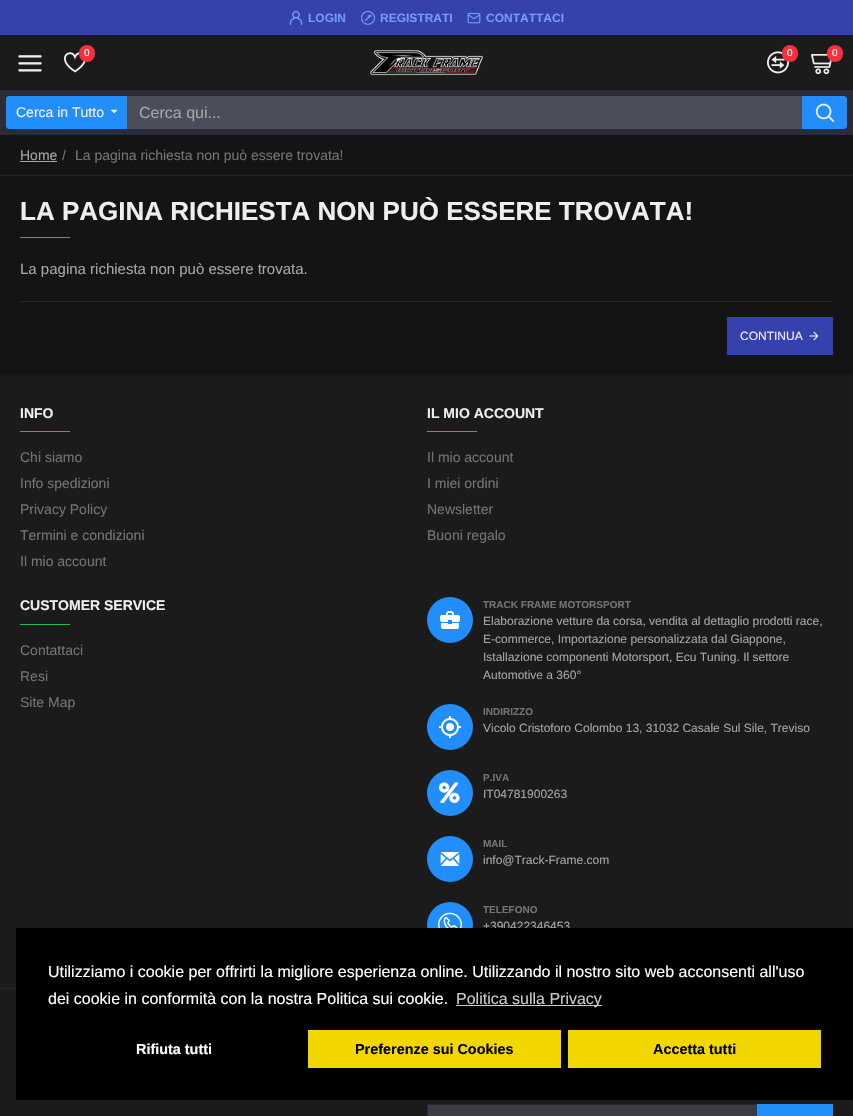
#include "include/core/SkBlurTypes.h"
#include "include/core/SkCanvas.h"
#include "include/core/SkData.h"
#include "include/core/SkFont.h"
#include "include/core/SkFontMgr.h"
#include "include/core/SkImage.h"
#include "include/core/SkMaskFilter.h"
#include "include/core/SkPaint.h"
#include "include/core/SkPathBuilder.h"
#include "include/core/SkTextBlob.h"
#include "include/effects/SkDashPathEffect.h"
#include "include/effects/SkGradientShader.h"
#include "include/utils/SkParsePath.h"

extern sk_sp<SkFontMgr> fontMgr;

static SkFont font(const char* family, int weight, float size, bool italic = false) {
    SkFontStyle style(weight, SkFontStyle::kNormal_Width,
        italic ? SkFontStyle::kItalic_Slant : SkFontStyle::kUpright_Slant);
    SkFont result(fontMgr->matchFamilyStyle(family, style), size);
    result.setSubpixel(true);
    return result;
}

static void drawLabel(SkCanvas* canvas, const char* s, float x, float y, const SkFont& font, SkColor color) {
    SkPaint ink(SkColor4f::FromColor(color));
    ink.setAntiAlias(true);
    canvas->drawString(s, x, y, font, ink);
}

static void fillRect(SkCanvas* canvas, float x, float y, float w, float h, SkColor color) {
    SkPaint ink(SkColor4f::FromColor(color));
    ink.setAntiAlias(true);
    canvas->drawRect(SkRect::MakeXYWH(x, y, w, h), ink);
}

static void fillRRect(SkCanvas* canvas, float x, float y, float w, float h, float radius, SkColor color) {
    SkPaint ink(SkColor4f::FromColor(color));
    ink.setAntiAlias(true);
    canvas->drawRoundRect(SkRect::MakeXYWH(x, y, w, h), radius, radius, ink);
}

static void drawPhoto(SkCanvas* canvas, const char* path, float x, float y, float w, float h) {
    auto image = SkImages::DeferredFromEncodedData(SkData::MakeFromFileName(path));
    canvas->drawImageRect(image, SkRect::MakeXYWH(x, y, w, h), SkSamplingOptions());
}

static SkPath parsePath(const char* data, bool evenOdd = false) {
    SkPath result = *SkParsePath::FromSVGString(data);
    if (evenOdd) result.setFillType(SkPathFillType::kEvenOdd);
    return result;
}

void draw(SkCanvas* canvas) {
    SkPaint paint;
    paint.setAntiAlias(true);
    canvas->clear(0xFF141414);
    fillRect(canvas, 0, 0, 853, 35, 0xFF3542AE);
    drawPhoto(canvas, "assets/img1.png", 289, 10, 14, 15);
    SkFont font1 = font("Liberation Sans", 700, 12);
    drawLabel(canvas, "LOGIN", 308, 22, font1, 0xFF719BFC);
    drawPhoto(canvas, "assets/img2.png", 361, 10, 14, 15);
    drawLabel(canvas, "REGISTRATI", 380, 22, font1, 0xFF719BFC);
    drawPhoto(canvas, "assets/img3.png", 467, 12, 14, 12);
    drawLabel(canvas, "CONTATTACI", 486, 22, font1, 0xFF719BFC);
    fillRect(canvas, 0, 35, 853, 55, 0xFF1B1B1B);
    drawPhoto(canvas, "assets/img4.png", 18, 55, 24, 17);
    drawPhoto(canvas, "assets/img5.png", 64, 52, 22, 21);
    fillRRect(canvas, 79, 45, 16, 17, 8, 0xFFF8303D);
    SkFont font2 = font("Liberation Sans", 400, 10);
    drawLabel(canvas, "0", 84, 56, font2, 0xFFFFFFFF);
    drawPhoto(canvas, "assets/img6.png", 370, 50, 113, 26);
    drawPhoto(canvas, "assets/img7.png", 767, 51, 22, 23);
    fillRRect(canvas, 782, 45, 16, 17, 8, 0xFFF8303D);
    drawLabel(canvas, "0", 787, 56, font2, 0xFFFFFFFF);
    drawPhoto(canvas, "assets/img8.png", 811, 54, 21, 21);
    fillRRect(canvas, 827, 45, 16, 17, 8, 0xFFF8303D);
    drawLabel(canvas, "0", 832, 56, font2, 0xFFFFFFFF);
    fillRect(canvas, 0, 90, 853, 45, 0xFF2C2C39);
    paint.setColor(0xFF228EFB);
    canvas->drawPath(parsePath("M9 96H127V129H9C7.5 129 6 127.5 6 126V99C6 97.5 7.5 96 9 96Z"), paint);
    SkFont font3 = font("Liberation Sans", 400, 14);
    drawLabel(canvas, "Cerca in Tutto", 16, 117, font3, 0xFFEEEEEE);
    drawPhoto(canvas, "assets/img9.png", 111, 109, 7, 5);
    fillRect(canvas, 127, 96, 675, 33, 0xFF4A4E5A);
    SkFont font4 = font("Liberation Sans", 400, 16);
    drawLabel(canvas, "Cerca qui...", 139, 118, font4, 0xFFA5A5A5);
    canvas->drawPath(parsePath("M802 96H844C845.5 96 847 97.5 847 99V126C847 127.5 845.5 129 844 129H802Z"), paint);
    drawPhoto(canvas, "assets/img10.png", 815, 103, 20, 19);
    drawLabel(canvas, "Home", 20, 160, font3, 0xFFA5A5A5);
    fillRect(canvas, 20, 161, 37, 1, 0xFFA5A5A5);
    drawLabel(canvas, "/", 62, 160, font3, 0xFF767272);
    drawLabel(canvas, "La pagina richiesta non può essere trovata!", 75, 160, font3, 0xFF767272);
    fillRect(canvas, 0, 175, 853, 1, 0xFF282832);
    SkFont font5 = font("Liberation Sans", 700, 26);
    drawLabel(canvas, "LA PAGINA RICHIESTA NON PUÒ ESSERE TROVATA!", 20, 220, font5, 0xFFEEEEEE);
    fillRect(canvas, 20, 237, 50, 1, 0xFF2AB858);
    SkFont font6 = font("Liberation Sans", 400, 15);
    drawLabel(canvas, "La pagina richiesta non può essere trovata.", 20, 274, font6, 0xFFA5A5A5);
    fillRect(canvas, 20, 301, 813, 1, 0xFF282832);
    fillRect(canvas, 727, 317, 106, 38, 0xFF3542AE);
    SkFont font7 = font("Liberation Sans", 400, 12);
    drawLabel(canvas, "CONTINUA", 740, 340, font7, 0xFFEEEEEE);
    drawPhoto(canvas, "assets/img11.png", 809, 331, 10, 10);
    fillRect(canvas, 0, 375, 853, 741, 0xFF1B1B1B);
    SkFont font8 = font("Liberation Sans", 700, 14);
    drawLabel(canvas, "INFO", 20, 418, font8, 0xFFEEEEEE);
    fillRect(canvas, 20, 431, 50, 1, 0xFF2AB858);
    drawLabel(canvas, "Chi siamo", 20, 462, font3, 0xFF767272);
    drawLabel(canvas, "Info spedizioni", 20, 488, font3, 0xFF767272);
    drawLabel(canvas, "Privacy Policy", 20, 514, font3, 0xFF767272);
    drawLabel(canvas, "Termini e condizioni", 20, 540, font3, 0xFF767272);
    drawLabel(canvas, "Il mio account", 20, 566, font3, 0xFF767272);
    drawLabel(canvas, "IL MIO ACCOUNT", 427, 418, font8, 0xFFEEEEEE);
    fillRect(canvas, 427, 431, 50, 1, 0xFF2AB858);
    drawLabel(canvas, "Il mio account", 427, 462, font3, 0xFF767272);
    drawLabel(canvas, "I miei ordini", 427, 488, font3, 0xFF767272);
    drawLabel(canvas, "Newsletter", 427, 514, font3, 0xFF767272);
    drawLabel(canvas, "Buoni regalo", 427, 540, font3, 0xFF767272);
    drawLabel(canvas, "CUSTOMER SERVICE", 20, 610, font8, 0xFFEEEEEE);
    fillRect(canvas, 20, 624, 50, 1, 0xFF2AB858);
    drawLabel(canvas, "Contattaci", 20, 655, font3, 0xFF767272);
    drawLabel(canvas, "Resi", 20, 681, font3, 0xFF767272);
    drawLabel(canvas, "Site Map", 20, 707, font3, 0xFF767272);
    canvas->drawCircle(450, 620, 23, paint);
    drawPhoto(canvas, "assets/img12.png", 440, 611, 20, 18);
    SkFont font9 = font("Liberation Sans", 700, 10);
    drawLabel(canvas, "TRACK FRAME MOTORSPORT", 483, 608, font9, 0xFF767272);
    drawLabel(canvas, "Elaborazione vetture da corsa, vendita al dettaglio prodotti race,", 483, 625, font7, 0xFFA5A5A5);
    drawLabel(canvas, "E-commerce, Importazione personalizzata dal Giappone,", 483, 643, font7, 0xFFA5A5A5);
    drawLabel(canvas, "Istallazione componenti Motorsport, Ecu Tuning. Il settore", 483, 661, font7, 0xFFA5A5A5);
    drawLabel(canvas, "Automotive a 360°", 483, 679, font7, 0xFFA5A5A5);
    canvas->drawCircle(450, 727, 23, paint);
    drawPhoto(canvas, "assets/img13.png", 439, 716, 22, 22);
    drawLabel(canvas, "INDIRIZZO", 483, 715, font9, 0xFF767272);
    drawLabel(canvas, "Vicolo Cristoforo Colombo 13, 31032 Casale Sul Sile, Treviso", 483, 732, font7, 0xFFA5A5A5);
    canvas->drawCircle(450, 793, 23, paint);
    drawPhoto(canvas, "assets/img14.png", 439, 782, 21, 21);
    drawLabel(canvas, "P.IVA", 483, 781, font9, 0xFF767272);
    drawLabel(canvas, "IT04781900263", 483, 798, font7, 0xFFA5A5A5);
    canvas->drawCircle(450, 859, 23, paint);
    drawPhoto(canvas, "assets/img15.png", 440, 852, 20, 14);
    drawLabel(canvas, "MAIL", 483, 847, font9, 0xFF767272);
    drawLabel(canvas, "info@Track-Frame.com", 483, 864, font7, 0xFFA5A5A5);
    canvas->drawCircle(450, 925, 23, paint);
    drawPhoto(canvas, "assets/img16.png", 438, 912, 24, 16);
    drawLabel(canvas, "TELEFONO", 483, 913, font9, 0xFF767272);
    drawLabel(canvas, "+390422346453", 483, 930, font7, 0xFFA5A5A5);
    fillRect(canvas, 0, 988, 16, 1, 0xFF282832);
    paint.setColor(0xFF3B3B43);
    canvas->drawRoundRect(SkRect::MakeXYWH(427.5f, 1104.5f, 405, 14), 1.5f, 1.5f, paint);
    paint.setStroke(true);
    paint.setStrokeWidth(1);
    paint.setColor(0xFF282832);
    canvas->drawRoundRect(SkRect::MakeXYWH(427.5f, 1104.5f, 405, 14), 1.5f, 1.5f, paint);
    fillRect(canvas, 757, 1104, 76, 12, 0xFF228EFB);
    fillRect(canvas, 16, 928, 837, 172, 0xFF000000);
    drawLabel(canvas, "Utilizziamo i cookie per offrirti la migliore esperienza online. Utilizzando il nostro sito web acconsenti all'uso", 48, 977, font4, 0xFFFFFFFF);
    drawLabel(canvas, "dei cookie in conformità con la nostra Politica sui cookie.", 48, 1004, font4, 0xFFFFFFFF);
    fillRect(canvas, 456, 1005, 146, 1, 0xFFCCCCCC);
    drawLabel(canvas, "Politica sulla Privacy", 456, 1004, font4, 0xFFCCCCCC);
    SkFont font10 = font("Liberation Sans", 700, 14.4f);
    drawLabel(canvas, "Rifiuta tutti", 136, 1054, font10, 0xFFFFFFFF);
    fillRect(canvas, 308, 1030, 253, 38, 0xFFF1D600);
    drawLabel(canvas, "Preferenze sui Cookies", 355, 1054, font10, 0xFF000000);
    fillRect(canvas, 568, 1030, 253, 38, 0xFFF1D600);
    drawLabel(canvas, "Accetta tutti", 653, 1054, font10, 0xFF000000);
}
